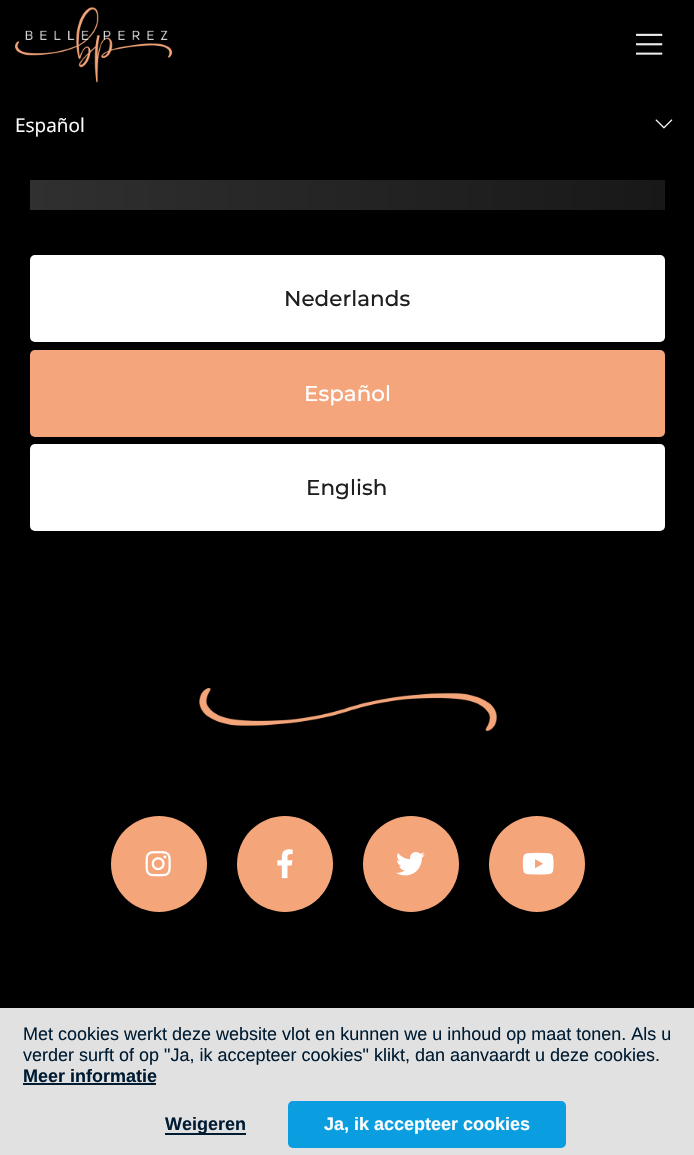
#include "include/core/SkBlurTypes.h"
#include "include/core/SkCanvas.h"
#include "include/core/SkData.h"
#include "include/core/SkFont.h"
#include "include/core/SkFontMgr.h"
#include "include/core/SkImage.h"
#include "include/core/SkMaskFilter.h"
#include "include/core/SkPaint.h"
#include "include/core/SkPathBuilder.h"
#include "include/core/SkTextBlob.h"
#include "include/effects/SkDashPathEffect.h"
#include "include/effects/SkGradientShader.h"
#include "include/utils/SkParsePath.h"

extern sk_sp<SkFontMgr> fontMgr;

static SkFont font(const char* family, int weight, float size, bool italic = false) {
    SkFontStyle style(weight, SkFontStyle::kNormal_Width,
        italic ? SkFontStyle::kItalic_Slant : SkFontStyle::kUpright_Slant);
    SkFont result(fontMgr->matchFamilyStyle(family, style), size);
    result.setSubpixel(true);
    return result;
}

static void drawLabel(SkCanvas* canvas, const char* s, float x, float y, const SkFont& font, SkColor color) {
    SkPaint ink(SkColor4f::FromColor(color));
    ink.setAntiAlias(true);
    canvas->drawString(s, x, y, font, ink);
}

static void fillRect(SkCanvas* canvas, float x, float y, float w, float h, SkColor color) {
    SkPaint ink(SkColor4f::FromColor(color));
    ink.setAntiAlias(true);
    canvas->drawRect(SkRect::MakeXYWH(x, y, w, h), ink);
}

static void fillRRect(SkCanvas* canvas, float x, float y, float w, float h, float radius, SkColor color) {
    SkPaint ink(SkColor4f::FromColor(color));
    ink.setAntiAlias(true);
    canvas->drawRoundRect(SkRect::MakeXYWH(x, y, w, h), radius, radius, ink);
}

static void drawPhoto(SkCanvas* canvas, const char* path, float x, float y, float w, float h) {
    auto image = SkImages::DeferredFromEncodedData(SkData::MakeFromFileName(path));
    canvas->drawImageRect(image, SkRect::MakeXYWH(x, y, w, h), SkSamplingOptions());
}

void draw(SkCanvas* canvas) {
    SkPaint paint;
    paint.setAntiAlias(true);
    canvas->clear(0xFF000000);
    drawPhoto(canvas, "assets/img1.png", 15, 7, 158, 76);
    drawPhoto(canvas, "assets/img2.png", 636, 33, 27, 22);
    SkFont font1 = font("Open Sans", 400, 19);
    drawLabel(canvas, "Español", 15, 132, font1, 0xFFFFFFFF);
    drawPhoto(canvas, "assets/img3.png", 655, 119, 18, 10);
    {
        const SkColor colors[] = {0xFF303030, 0xFF181818};
        const float stops[] = {0, 1};
        const SkPoint ends[] = {{30, 195}, {665, 195}};
        paint.setShader(SkGradientShader::MakeLinear(ends, colors, stops, 2, SkTileMode::kClamp));
        paint.setAlpha(255);
    }
    canvas->drawRect(SkRect::MakeXYWH(30, 180, 635, 30), paint);
    fillRRect(canvas, 30, 255, 635, 87, 5, 0xFFFFFFFF);
    SkFont font2 = font("Montserrat", 100, 21.5f);
    drawLabel(canvas, "Nederlands", 284, 306, font2, 0xFF1F1F1F);
    fillRRect(canvas, 30, 350, 635, 87, 5, 0xFFF5A57B);
    drawLabel(canvas, "Español", 304, 401, font2, 0xFFFFFFFF);
    fillRRect(canvas, 30, 444, 635, 87, 5, 0xFFFFFFFF);
    drawLabel(canvas, "English", 306, 495, font2, 0xFF1F1F1F);
    drawPhoto(canvas, "assets/img4.png", 199, 688, 298, 43);
    paint.setShader(nullptr);
    paint.setColor(0xFFF5A57A);
    canvas->drawCircle(159, 864, 48, paint);
    drawPhoto(canvas, "assets/img5.png", 145, 851, 26, 26);
    canvas->drawCircle(285, 864, 48, paint);
    drawPhoto(canvas, "assets/img6.png", 277, 849, 16, 30);
    canvas->drawCircle(411, 864, 48, paint);
    drawPhoto(canvas, "assets/img7.png", 396, 852, 29, 24);
    canvas->drawCircle(537, 864, 48, paint);
    drawPhoto(canvas, "assets/img8.png", 522, 852, 32, 23);
    fillRect(canvas, 0, 1008, 694, 147, 0xFFE1E1E1);
    SkFont font3 = font("Liberation Sans", 400, 18);
    drawLabel(canvas, "Met cookies werkt deze website vlot en kunnen we u inhoud op maat tonen. Als u", 23, 1040, font3, 0xFF001C33);
    drawLabel(canvas, "verder surft of op \"Ja, ik accepteer cookies\" klikt, dan aanvaardt u deze cookies.", 23, 1061, font3, 0xFF001C33);
    SkFont font4 = font("Liberation Sans", 700, 18);
    drawLabel(canvas, "Meer informatie", 23, 1082, font4, 0xFF001C33);
    fillRect(canvas, 23, 1083, 133, 2, 0xFF001C33);
    fillRect(canvas, 165, 1133, 81, 2, 0xFF001C33);
    drawLabel(canvas, "Weigeren", 165, 1130, font4, 0xFF001C33);
    fillRRect(canvas, 288, 1101, 278, 47, 5, 0xFF0A9DDF);
    drawLabel(canvas, "Ja, ik accepteer cookies", 324, 1130, font4, 0xFFFFFFFF);
}
